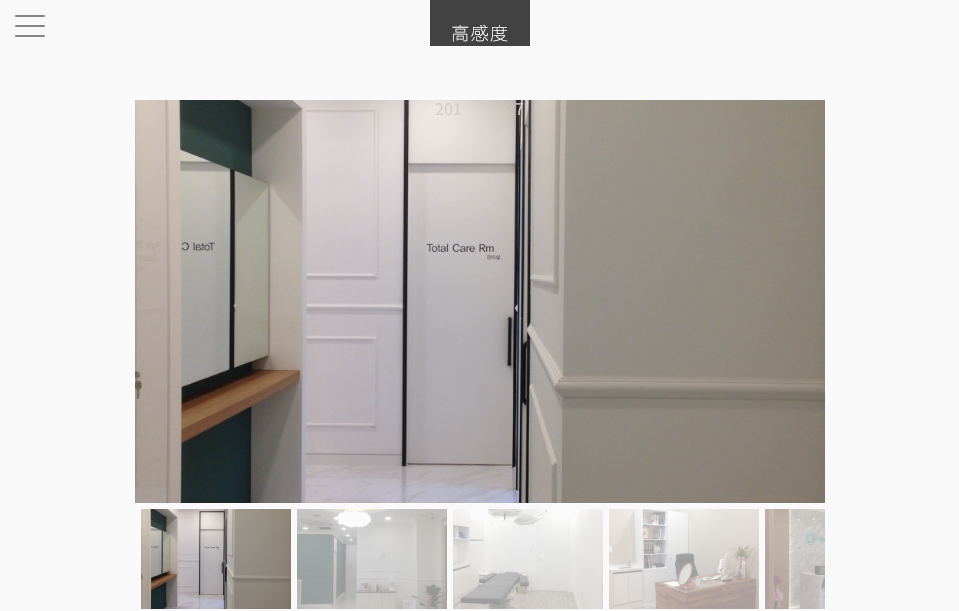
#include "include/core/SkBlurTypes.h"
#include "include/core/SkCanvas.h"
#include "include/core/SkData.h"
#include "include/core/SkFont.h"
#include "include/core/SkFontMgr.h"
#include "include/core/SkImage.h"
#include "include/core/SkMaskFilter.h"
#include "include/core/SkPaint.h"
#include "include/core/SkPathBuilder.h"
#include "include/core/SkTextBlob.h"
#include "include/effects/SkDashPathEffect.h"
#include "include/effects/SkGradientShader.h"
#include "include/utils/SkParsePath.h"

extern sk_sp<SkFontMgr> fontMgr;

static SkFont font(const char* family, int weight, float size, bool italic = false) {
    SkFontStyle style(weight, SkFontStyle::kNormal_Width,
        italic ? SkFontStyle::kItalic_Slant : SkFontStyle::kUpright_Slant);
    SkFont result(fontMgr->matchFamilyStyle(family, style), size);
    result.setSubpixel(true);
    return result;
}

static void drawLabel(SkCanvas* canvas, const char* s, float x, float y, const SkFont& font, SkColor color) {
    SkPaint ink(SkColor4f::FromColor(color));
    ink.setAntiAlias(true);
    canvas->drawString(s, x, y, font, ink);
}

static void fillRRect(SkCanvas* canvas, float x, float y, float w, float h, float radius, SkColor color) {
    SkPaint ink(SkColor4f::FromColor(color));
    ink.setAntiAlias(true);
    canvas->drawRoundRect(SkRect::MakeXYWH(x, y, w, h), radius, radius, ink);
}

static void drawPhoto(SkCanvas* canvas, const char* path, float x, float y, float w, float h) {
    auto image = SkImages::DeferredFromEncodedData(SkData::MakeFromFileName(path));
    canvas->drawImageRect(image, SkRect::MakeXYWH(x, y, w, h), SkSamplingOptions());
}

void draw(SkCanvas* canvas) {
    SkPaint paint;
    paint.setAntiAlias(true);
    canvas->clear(0xFFF9F9F9);
    fillRRect(canvas, 15, 25, 30, 2, 1, 0xFF868686);
    fillRRect(canvas, 15, 15, 30, 2, 1, 0xFF868686);
    fillRRect(canvas, 15, 35, 30, 2, 1, 0xFF868686);
    drawPhoto(canvas, "assets/img1.png", 430, 0, 100, 46);
    drawPhoto(canvas, "assets/img2.png", 135, 100, 690, 403);
    SkFont font1 = font("Noto Sans KR", 400, 16);
    drawLabel(canvas, "201", 435, 115, font1, 0xFFD3CCC7);
    drawLabel(canvas, "7", 515, 115, font1, 0xFFD3CCC7);
    drawPhoto(canvas, "assets/img3.png", 141, 509, 150, 100);
    drawPhoto(canvas, "assets/img4.png", 297, 509, 150, 100);
    drawPhoto(canvas, "assets/img5.png", 453, 509, 150, 100);
    drawPhoto(canvas, "assets/img6.png", 609, 509, 150, 100);
    drawPhoto(canvas, "assets/img7.png", 765, 509, 60, 100);
}
